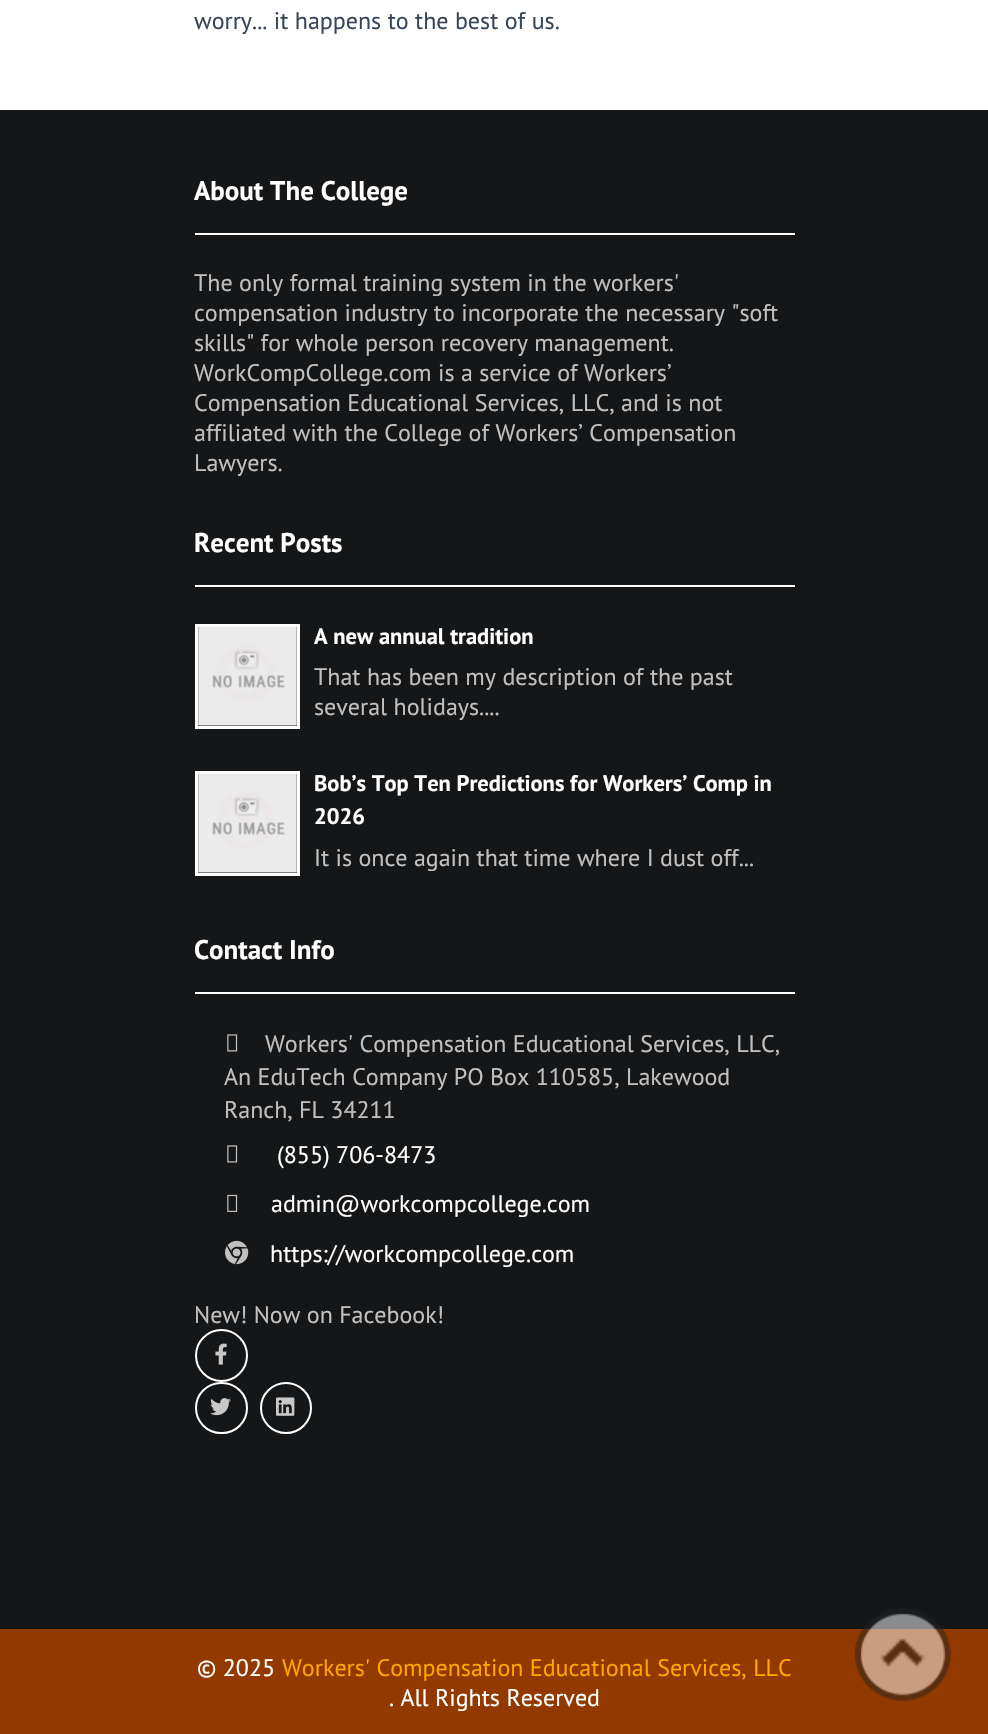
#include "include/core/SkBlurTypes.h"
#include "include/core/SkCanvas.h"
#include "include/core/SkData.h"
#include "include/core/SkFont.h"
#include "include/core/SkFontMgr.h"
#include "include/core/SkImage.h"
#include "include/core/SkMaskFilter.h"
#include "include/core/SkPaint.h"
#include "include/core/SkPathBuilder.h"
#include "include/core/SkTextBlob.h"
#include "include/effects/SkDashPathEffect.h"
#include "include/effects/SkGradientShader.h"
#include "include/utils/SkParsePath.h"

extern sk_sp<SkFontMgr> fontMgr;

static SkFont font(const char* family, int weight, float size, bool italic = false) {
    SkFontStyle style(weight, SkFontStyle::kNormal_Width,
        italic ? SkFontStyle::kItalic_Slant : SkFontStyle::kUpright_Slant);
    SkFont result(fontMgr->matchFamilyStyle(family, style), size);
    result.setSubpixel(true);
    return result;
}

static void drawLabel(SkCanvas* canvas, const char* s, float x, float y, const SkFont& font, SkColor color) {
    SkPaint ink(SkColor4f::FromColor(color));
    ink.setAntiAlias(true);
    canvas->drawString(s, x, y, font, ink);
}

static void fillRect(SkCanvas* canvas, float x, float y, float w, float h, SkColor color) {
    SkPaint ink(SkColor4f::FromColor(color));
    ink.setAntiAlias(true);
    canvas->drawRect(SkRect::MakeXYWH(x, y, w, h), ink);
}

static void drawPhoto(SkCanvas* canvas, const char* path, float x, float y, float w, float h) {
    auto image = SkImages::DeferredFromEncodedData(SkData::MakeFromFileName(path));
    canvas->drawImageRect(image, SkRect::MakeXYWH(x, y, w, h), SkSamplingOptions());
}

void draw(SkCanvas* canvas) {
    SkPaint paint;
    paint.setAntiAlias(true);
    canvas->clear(0xFFFFFFFF);
    SkFont font1 = font("PT Sans", 400, 24);
    drawLabel(canvas, "worry... it happens to the best of us.", 194, 29, font1, 0xFF364558);
    fillRect(canvas, 0, 110, 988, 1519, 0xFF141618);
    fillRect(canvas, 195, 233, 600, 2, 0xFFFFFFFF);
    SkFont font2 = font("PT Sans", 700, 27);
    drawLabel(canvas, "About The College", 194, 200, font2, 0xFFFFFFFF);
    drawLabel(canvas, "The only formal training system in the workers'", 194, 291, font1, 0xFFC1C0C0);
    drawLabel(canvas, "compensation industry to incorporate the necessary \"soft", 194, 321, font1, 0xFFC1C0C0);
    drawLabel(canvas, "skills\" for whole person recovery management.", 194, 351, font1, 0xFFC1C0C0);
    drawLabel(canvas, "WorkCompCollege.com is a service of Workers’", 194, 381, font1, 0xFFC1C0C0);
    drawLabel(canvas, "Compensation Educational Services, LLC, and is not", 194, 411, font1, 0xFFC1C0C0);
    drawLabel(canvas, "affiliated with the College of Workers’ Compensation", 194, 441, font1, 0xFFC1C0C0);
    drawLabel(canvas, "Lawyers.", 194, 471, font1, 0xFFC1C0C0);
    fillRect(canvas, 195, 585, 600, 2, 0xFFFFFFFF);
    drawLabel(canvas, "Recent Posts", 194, 552, font2, 0xFFFFFFFF);
    paint.setStroke(true);
    paint.setStrokeWidth(3);
    paint.setColor(0xFFFFFFFF);
    canvas->drawRect(SkRect::MakeXYWH(196.5f, 625.5f, 102, 102), paint);
    drawPhoto(canvas, "assets/img1.png", 197, 626, 101, 100);
    SkFont font3 = font("PT Sans", 700, 22.5f);
    drawLabel(canvas, "A new annual tradition", 314, 644, font3, 0xFFFFFFFF);
    drawLabel(canvas, "That has been my description of the past", 314, 685, font1, 0xFFC1C0C0);
    drawLabel(canvas, "several holidays....", 314, 715, font1, 0xFFC1C0C0);
    canvas->drawRect(SkRect::MakeXYWH(196.5f, 772.5f, 102, 102), paint);
    drawPhoto(canvas, "assets/img1.png", 197, 773, 101, 100);
    drawLabel(canvas, "Bob’s Top Ten Predictions for Workers’ Comp in", 314, 791, font3, 0xFFFFFFFF);
    drawLabel(canvas, "2026", 314, 824, font3, 0xFFFFFFFF);
    drawLabel(canvas, "It is once again that time where I dust off...", 314, 866, font1, 0xFFC1C0C0);
    fillRect(canvas, 195, 992, 600, 2, 0xFFFFFFFF);
    drawLabel(canvas, "Contact Info", 194, 959, font2, 0xFFFFFFFF);
    drawPhoto(canvas, "assets/img2.png", 227, 1034, 11, 18);
    drawLabel(canvas, "Workers' Compensation Educational Services, LLC,", 265, 1052, font1, 0xFFC1C0C0);
    drawLabel(canvas, "An EduTech Company PO Box 110585, Lakewood", 224, 1085, font1, 0xFFC1C0C0);
    drawLabel(canvas, "Ranch, FL 34211", 224, 1118, font1, 0xFFC1C0C0);
    drawPhoto(canvas, "assets/img2.png", 227, 1145, 11, 18);
    drawLabel(canvas, "(855) 706-8473", 277, 1163, font1, 0xFFFFFFFF);
    drawPhoto(canvas, "assets/img3.png", 227, 1194, 11, 18);
    drawLabel(canvas, "admin@workcompcollege.com", 271, 1212, font1, 0xFFFFFFFF);
    drawPhoto(canvas, "assets/img4.png", 225, 1240, 24, 25);
    drawLabel(canvas, "https://workcompcollege.com", 270, 1262, font1, 0xFFFFFFFF);
    drawLabel(canvas, "New! Now on Facebook!", 194, 1323, font1, 0xFFC1C0C0);
    paint.setStrokeWidth(2);
    canvas->drawCircle(221.5f, 1355.5f, 25.5f, paint);
    drawPhoto(canvas, "assets/img5.png", 215, 1343, 12, 22);
    canvas->drawRoundRect(SkRect::MakeXYWH(196, 1383, 51, 50), 25, 25, paint);
    drawPhoto(canvas, "assets/img6.png", 210, 1398, 21, 18);
    canvas->drawCircle(286, 1408, 25, paint);
    drawPhoto(canvas, "assets/img7.png", 276, 1397, 19, 19);
    fillRect(canvas, 0, 1629, 988, 105, 0xFF923900);
    drawLabel(canvas, "© 2025", 197, 1676, font1, 0xFFFFFFFF);
    drawLabel(canvas, "Workers' Compensation Educational Services, LLC", 282, 1676, font1, 0xFFFFA600);
    drawLabel(canvas, ". All Rights Reserved", 389, 1706, font1, 0xFFFFFFFF);
    drawPhoto(canvas, "assets/img8.png", 855, 1608, 96, 93);
}
